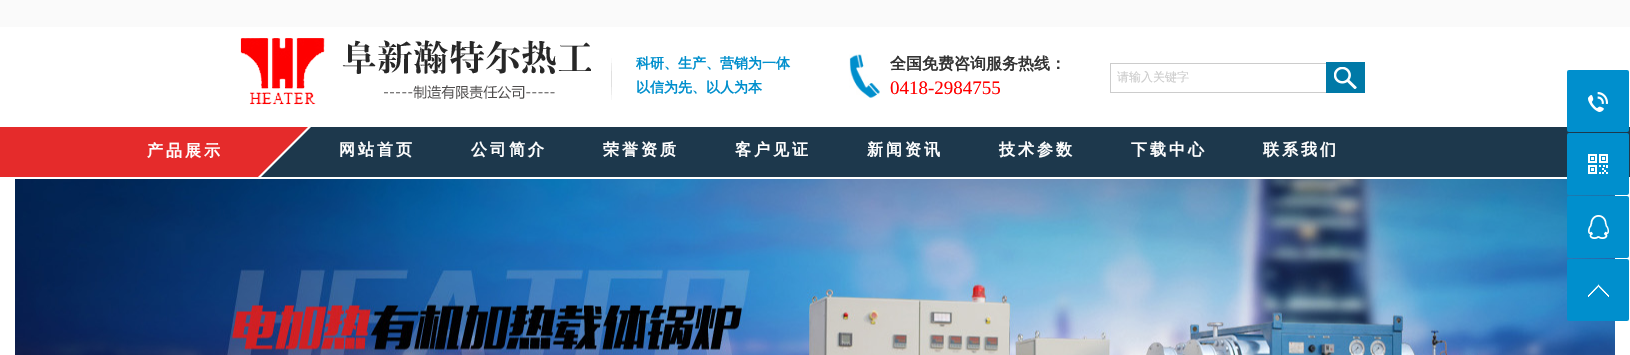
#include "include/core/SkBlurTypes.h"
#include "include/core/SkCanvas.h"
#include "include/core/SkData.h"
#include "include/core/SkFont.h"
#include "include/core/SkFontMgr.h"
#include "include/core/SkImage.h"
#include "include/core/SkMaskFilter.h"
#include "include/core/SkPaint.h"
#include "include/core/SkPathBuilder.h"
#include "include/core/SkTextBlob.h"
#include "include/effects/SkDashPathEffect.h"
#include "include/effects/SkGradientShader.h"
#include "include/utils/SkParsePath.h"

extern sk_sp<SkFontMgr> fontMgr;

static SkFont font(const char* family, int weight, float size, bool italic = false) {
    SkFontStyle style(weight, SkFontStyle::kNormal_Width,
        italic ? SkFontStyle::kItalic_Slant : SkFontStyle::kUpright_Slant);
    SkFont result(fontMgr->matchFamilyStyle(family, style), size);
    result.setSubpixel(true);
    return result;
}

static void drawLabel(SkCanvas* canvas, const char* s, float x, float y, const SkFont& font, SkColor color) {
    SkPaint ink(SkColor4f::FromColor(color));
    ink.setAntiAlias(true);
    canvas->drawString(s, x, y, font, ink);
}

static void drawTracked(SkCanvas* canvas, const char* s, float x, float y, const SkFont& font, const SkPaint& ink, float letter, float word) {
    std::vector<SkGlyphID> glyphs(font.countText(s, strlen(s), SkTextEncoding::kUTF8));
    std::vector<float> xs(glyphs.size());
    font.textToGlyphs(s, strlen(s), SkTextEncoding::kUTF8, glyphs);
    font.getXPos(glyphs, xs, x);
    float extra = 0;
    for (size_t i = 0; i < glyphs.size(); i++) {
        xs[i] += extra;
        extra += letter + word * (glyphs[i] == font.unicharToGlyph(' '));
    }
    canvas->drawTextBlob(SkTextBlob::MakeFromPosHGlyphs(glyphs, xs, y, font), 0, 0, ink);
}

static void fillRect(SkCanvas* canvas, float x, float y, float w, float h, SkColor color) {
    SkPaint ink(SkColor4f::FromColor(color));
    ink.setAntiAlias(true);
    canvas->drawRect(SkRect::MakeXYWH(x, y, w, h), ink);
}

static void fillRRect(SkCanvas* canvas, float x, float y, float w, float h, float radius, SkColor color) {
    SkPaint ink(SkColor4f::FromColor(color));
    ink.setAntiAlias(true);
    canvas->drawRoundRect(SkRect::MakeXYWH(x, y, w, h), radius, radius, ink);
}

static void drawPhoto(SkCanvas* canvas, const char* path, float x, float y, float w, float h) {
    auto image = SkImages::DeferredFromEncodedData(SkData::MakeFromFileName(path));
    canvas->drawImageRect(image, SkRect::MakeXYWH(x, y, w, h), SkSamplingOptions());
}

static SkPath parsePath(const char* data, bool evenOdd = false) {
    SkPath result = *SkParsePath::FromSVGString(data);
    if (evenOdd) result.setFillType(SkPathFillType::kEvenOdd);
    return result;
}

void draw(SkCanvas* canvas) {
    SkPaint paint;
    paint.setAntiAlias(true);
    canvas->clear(0xFFFFFFFF);
    fillRect(canvas, 0, 0, 1630, 27, 0xFFFAFAFA);
    drawPhoto(canvas, "assets/img1.png", 240, 38, 351, 67);
    drawPhoto(canvas, "assets/img2.png", 611, 58, 1, 42);
    SkFont font1 = font("WenQuanYi Zen Hei", 700, 14);
    drawLabel(canvas, "科研、生产、营销为一体", 636, 68, font1, 0xFF008FCD);
    drawLabel(canvas, "以信为先、以人为本", 636, 92, font1, 0xFF008FCD);
    drawPhoto(canvas, "assets/img3.png", 849, 54, 31, 44);
    SkFont font2 = font("WenQuanYi Zen Hei", 700, 16);
    drawLabel(canvas, "全国免费咨询服务热线：", 890, 69, font2, 0xFF333333);
    SkFont font3 = font("Liberation Serif", 400, 19);
    drawLabel(canvas, "0418-2984755", 890, 94, font3, 0xFFFF0000);
    paint.setStroke(true);
    paint.setStrokeWidth(1);
    paint.setColor(0xFFCCCCCC);
    canvas->drawRect(SkRect::MakeXYWH(1110.5f, 63.5f, 219, 29), paint);
    SkFont font4 = font("WenQuanYi Zen Hei", 500, 12);
    drawLabel(canvas, "请输入关键字", 1117, 81, font4, 0xFFCCCCCC);
    fillRect(canvas, 1326, 62, 39, 31, 0xFF0079A7);
    drawPhoto(canvas, "assets/img4.png", 1334, 67, 23, 22);
    paint.setStroke(false);
    paint.setColor(0xFFE52B2B);
    canvas->drawPath(parsePath("M0 127H308L258 177H0Z"), paint);
    paint.setColor(0xFF1D384C);
    canvas->drawPath(parsePath("M1630 177H261L311 127H1630Z"), paint);
    fillRRect(canvas, 1567, 70, 62, 62, 2, 0xFF008FCD);
    drawPhoto(canvas, "assets/img5.png", 1588, 92, 20, 20);
    drawPhoto(canvas, "assets/img9.png", 15, 179, 1600, 176);
    fillRRect(canvas, 1567, 133, 62, 62, 2, 0xFF008FCD);
    drawPhoto(canvas, "assets/img6.png", 1588, 154, 20, 20);
    fillRRect(canvas, 1567, 196, 62, 62, 2, 0xFF008FCD);
    drawPhoto(canvas, "assets/img7.png", 1588, 215, 21, 24);
    fillRRect(canvas, 1567, 259, 62, 62, 2, 0xFF008FCD);
    drawPhoto(canvas, "assets/img8.png", 1588, 284, 21, 13);
    paint.setColor(0xFFFFFFFF);
    drawTracked(canvas, "产品展示", 147, 156, font2, paint, 3, 0);
    drawTracked(canvas, "网站首页", 339, 155, font2, paint, 3, 0);
    drawTracked(canvas, "公司简介", 471, 155, font2, paint, 3, 0);
    drawTracked(canvas, "荣誉资质", 603, 155, font2, paint, 3, 0);
    drawTracked(canvas, "客户见证", 735, 155, font2, paint, 3, 0);
    drawTracked(canvas, "新闻资讯", 867, 155, font2, paint, 3, 0);
    drawTracked(canvas, "技术参数", 999, 155, font2, paint, 3, 0);
    drawTracked(canvas, "下载中心", 1131, 155, font2, paint, 3, 0);
    drawTracked(canvas, "联系我们", 1263, 155, font2, paint, 3, 0);
}
